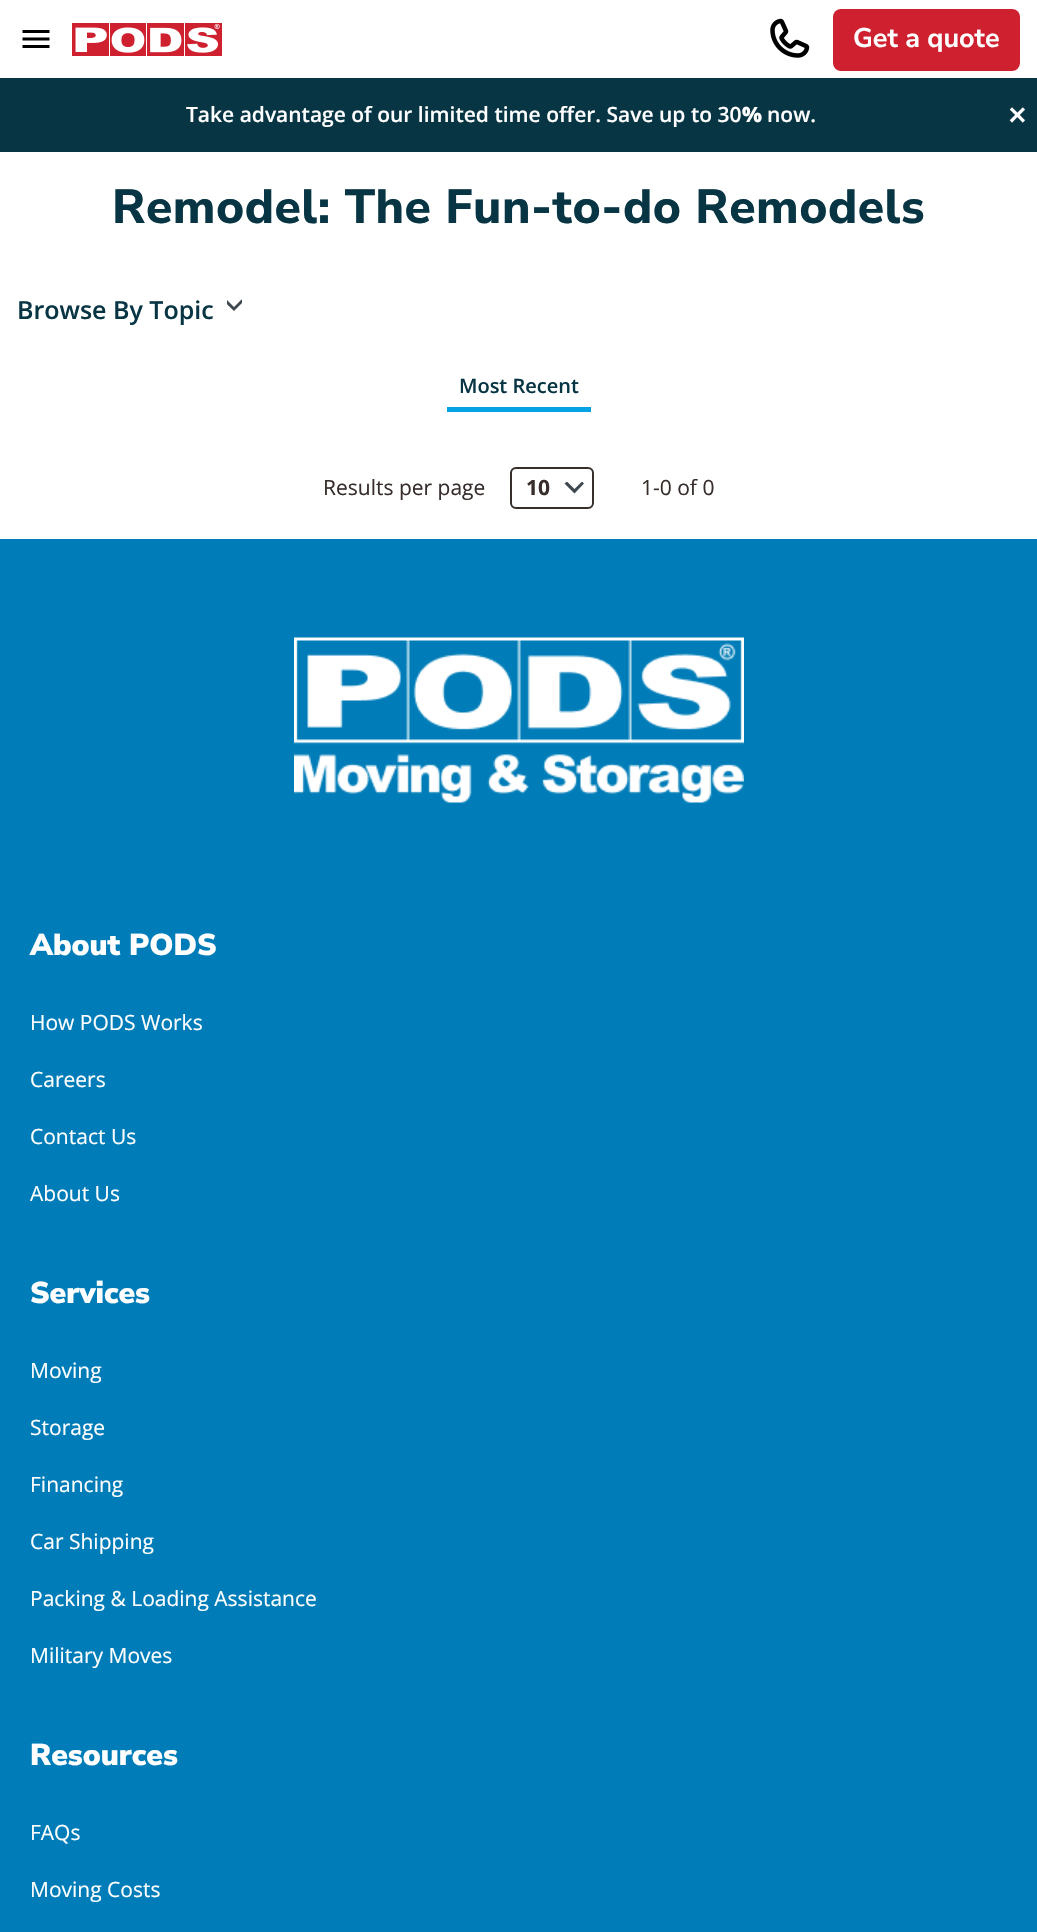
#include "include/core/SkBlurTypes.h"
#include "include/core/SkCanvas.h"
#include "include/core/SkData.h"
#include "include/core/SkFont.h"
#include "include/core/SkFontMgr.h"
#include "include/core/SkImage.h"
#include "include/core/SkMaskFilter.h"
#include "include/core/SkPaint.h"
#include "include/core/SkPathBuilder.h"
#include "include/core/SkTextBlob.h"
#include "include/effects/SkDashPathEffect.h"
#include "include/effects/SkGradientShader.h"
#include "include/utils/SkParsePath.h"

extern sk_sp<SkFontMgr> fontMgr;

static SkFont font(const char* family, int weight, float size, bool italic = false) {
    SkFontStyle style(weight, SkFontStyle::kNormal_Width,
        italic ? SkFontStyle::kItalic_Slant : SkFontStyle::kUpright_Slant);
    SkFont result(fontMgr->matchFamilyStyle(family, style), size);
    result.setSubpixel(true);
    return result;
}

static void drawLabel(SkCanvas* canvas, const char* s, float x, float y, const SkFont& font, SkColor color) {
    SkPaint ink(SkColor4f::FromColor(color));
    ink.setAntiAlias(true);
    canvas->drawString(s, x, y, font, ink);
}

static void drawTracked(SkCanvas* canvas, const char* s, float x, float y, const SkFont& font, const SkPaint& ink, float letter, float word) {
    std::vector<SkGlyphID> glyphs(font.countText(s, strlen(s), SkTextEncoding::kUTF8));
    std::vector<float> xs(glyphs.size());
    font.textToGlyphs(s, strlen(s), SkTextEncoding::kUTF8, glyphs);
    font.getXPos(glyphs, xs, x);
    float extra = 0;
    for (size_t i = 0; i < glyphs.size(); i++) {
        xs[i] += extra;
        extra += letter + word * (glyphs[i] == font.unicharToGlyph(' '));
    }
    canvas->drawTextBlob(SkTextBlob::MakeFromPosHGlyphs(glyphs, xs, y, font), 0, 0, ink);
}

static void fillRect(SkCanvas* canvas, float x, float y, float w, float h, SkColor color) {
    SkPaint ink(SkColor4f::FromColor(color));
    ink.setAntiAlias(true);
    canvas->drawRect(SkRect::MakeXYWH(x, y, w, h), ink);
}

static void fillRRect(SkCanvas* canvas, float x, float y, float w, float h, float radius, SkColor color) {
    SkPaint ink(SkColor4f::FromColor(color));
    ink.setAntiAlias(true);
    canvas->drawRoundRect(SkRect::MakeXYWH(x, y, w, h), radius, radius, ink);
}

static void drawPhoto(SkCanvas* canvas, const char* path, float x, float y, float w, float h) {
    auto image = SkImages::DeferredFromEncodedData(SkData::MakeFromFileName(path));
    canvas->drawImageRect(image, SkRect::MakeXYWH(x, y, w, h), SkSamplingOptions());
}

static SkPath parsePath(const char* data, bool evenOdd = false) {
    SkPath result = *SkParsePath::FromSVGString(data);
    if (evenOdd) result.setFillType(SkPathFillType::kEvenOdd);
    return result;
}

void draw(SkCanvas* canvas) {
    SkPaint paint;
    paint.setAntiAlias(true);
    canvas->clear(0xFFFFFFFF);
    drawPhoto(canvas, "assets/img1.png", 22, 30, 28, 18);
    drawPhoto(canvas, "assets/img2.png", 72, 23, 150, 33);
    drawPhoto(canvas, "assets/img3.png", 770, 18, 40, 40);
    fillRRect(canvas, 833, 9, 187, 62, 8, 0xFFCE202F);
    SkFont font1 = font("Nunito Sans", 700, 27);
    drawLabel(canvas, "Get a quote", 853, 47, font1, 0xFFFFFFFF);
    fillRect(canvas, 0, 78, 1037, 74, 0xFF083544);
    SkFont font2 = font("Open Sans", 600, 21);
    drawLabel(canvas, "Take advantage of our limited time offer. Save up to 30", 186, 122, font2, 0xFFFFFFFF);
    SkFont font3 = font("Open Sans", 800, 21);
    drawLabel(canvas, "%", 742, 122, font3, 0xFFFFFFFF);
    drawLabel(canvas, "now.", 767, 122, font2, 0xFFFFFFFF);
    SkFont font4 = font("DejaVu Sans", 700, 24);
    drawLabel(canvas, "✕", 1007, 124, font4, 0xFFFFFFFF);
    SkFont font5 = font("Nunito Sans", 800, 48);
    paint.setColor(0xFF083544);
    drawTracked(canvas, "Remodel: The Fun-to-do Remodels", 112, 223, font5, paint, 0.5f, 0);
    SkFont font6 = font("Open Sans", 600, 25);
    drawLabel(canvas, "Browse By Topic", 17, 319, font6, 0xFF083544);
    canvas->save();
    canvas->clipRect(SkRect::MakeXYWH(227, 299, 15, 13));
    paint.setColor(0xFF3F474F);
    canvas->drawPath(parsePath("M234 311L224 301.5L226.5 299.5L234 307L241.5 299.5L243.5 301.5Z", true), paint);
    canvas->restore();
    fillRect(canvas, 447, 407, 144, 5, 0xFF03A2E2);
    SkFont font7 = font("Open Sans", 600, 20);
    drawLabel(canvas, "Most Recent", 459, 393, font7, 0xFF083544);
    SkFont font8 = font("Open Sans", 400, 21);
    drawLabel(canvas, "Results per page", 323, 495, font8, 0xFF372E2C);
    canvas->save();
    canvas->clipRect(SkRect::MakeXYWH(564, 482, 21, 13));
    canvas->drawPath(parsePath("M574.5 493.5L564.5 483.5L567 481.5L574.5 489L582 481.5L584 483.5Z", true), paint);
    canvas->restore();
    paint.setStroke(true);
    paint.setStrokeWidth(2);
    paint.setColor(0xFF372E2C);
    canvas->drawRoundRect(SkRect::MakeXYWH(511, 468, 82, 40), 5, 5, paint);
    SkFont font9 = font("Open Sans", 700, 21);
    drawLabel(canvas, "10", 526, 495, font9, 0xFF372E2C);
    drawLabel(canvas, "1-0 of 0", 641, 495, font8, 0xFF372E2C);
    fillRect(canvas, 0, 539, 1037, 1393, 0xFF007DB8);
    drawPhoto(canvas, "assets/img4.png", 294, 637, 450, 166);
    SkFont font10 = font("Nunito Sans", 900, 30);
    drawLabel(canvas, "About PODS", 30, 955, font10, 0xFFFFFFFF);
    drawLabel(canvas, "How PODS Works", 30, 1030, font8, 0xFFFFFFFF);
    drawLabel(canvas, "Careers", 30, 1087, font8, 0xFFFFFFFF);
    drawLabel(canvas, "Contact Us", 30, 1144, font8, 0xFFFFFFFF);
    drawLabel(canvas, "About Us", 30, 1201, font8, 0xFFFFFFFF);
    drawLabel(canvas, "Services", 30, 1303, font10, 0xFFFFFFFF);
    drawLabel(canvas, "Moving", 30, 1378, font8, 0xFFFFFFFF);
    drawLabel(canvas, "Storage", 30, 1435, font8, 0xFFFFFFFF);
    drawLabel(canvas, "Financing", 30, 1492, font8, 0xFFFFFFFF);
    drawLabel(canvas, "Car Shipping", 30, 1549, font8, 0xFFFFFFFF);
    drawLabel(canvas, "Packing & Loading Assistance", 30, 1606, font8, 0xFFFFFFFF);
    drawLabel(canvas, "Military Moves", 30, 1663, font8, 0xFFFFFFFF);
    drawLabel(canvas, "Resources", 30, 1765, font10, 0xFFFFFFFF);
    drawLabel(canvas, "FAQs", 30, 1840, font8, 0xFFFFFFFF);
    drawLabel(canvas, "Moving Costs", 30, 1897, font8, 0xFFFFFFFF);
}
